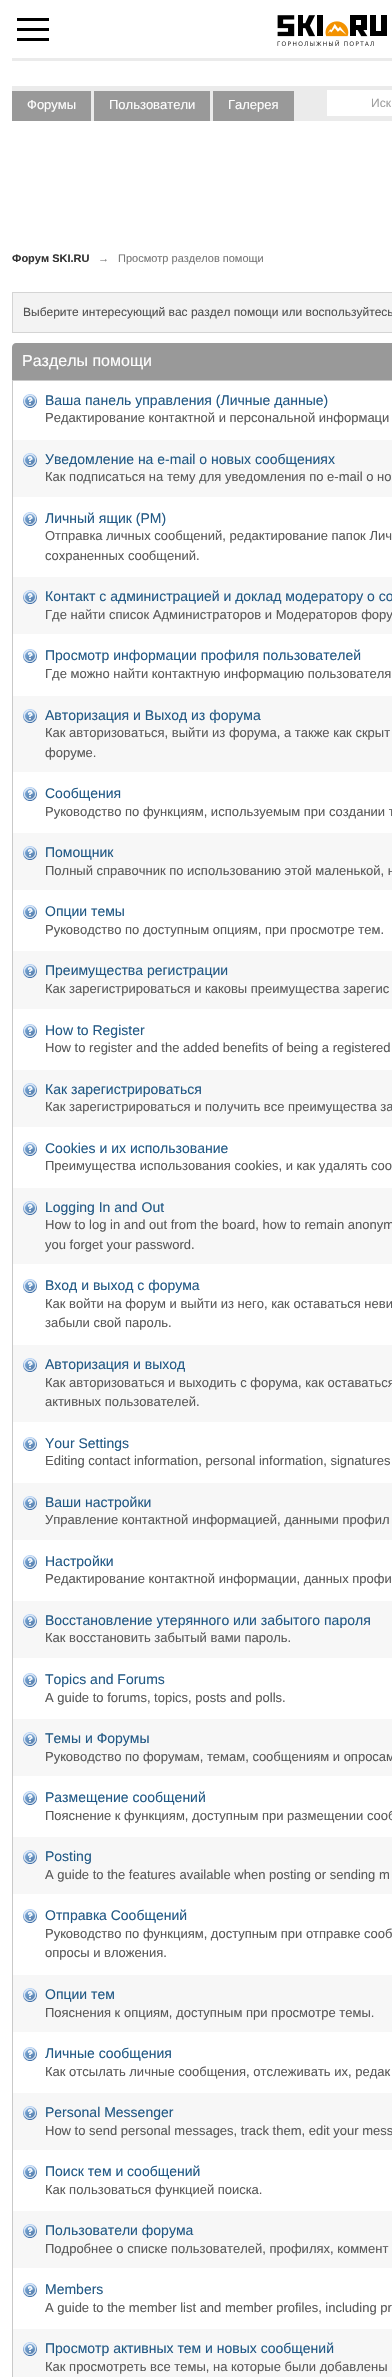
#include "include/core/SkBlurTypes.h"
#include "include/core/SkCanvas.h"
#include "include/core/SkData.h"
#include "include/core/SkFont.h"
#include "include/core/SkFontMgr.h"
#include "include/core/SkImage.h"
#include "include/core/SkMaskFilter.h"
#include "include/core/SkPaint.h"
#include "include/core/SkPathBuilder.h"
#include "include/core/SkTextBlob.h"
#include "include/effects/SkDashPathEffect.h"
#include "include/effects/SkGradientShader.h"
#include "include/utils/SkParsePath.h"

extern sk_sp<SkFontMgr> fontMgr;

static SkFont font(const char* family, int weight, float size, bool italic = false) {
    SkFontStyle style(weight, SkFontStyle::kNormal_Width,
        italic ? SkFontStyle::kItalic_Slant : SkFontStyle::kUpright_Slant);
    SkFont result(fontMgr->matchFamilyStyle(family, style), size);
    result.setSubpixel(true);
    return result;
}

static void drawLabel(SkCanvas* canvas, const char* s, float x, float y, const SkFont& font, SkColor color) {
    SkPaint ink(SkColor4f::FromColor(color));
    ink.setAntiAlias(true);
    canvas->drawString(s, x, y, font, ink);
}

static void fillRect(SkCanvas* canvas, float x, float y, float w, float h, SkColor color) {
    SkPaint ink(SkColor4f::FromColor(color));
    ink.setAntiAlias(true);
    canvas->drawRect(SkRect::MakeXYWH(x, y, w, h), ink);
}

static void drawPhoto(SkCanvas* canvas, const char* path, float x, float y, float w, float h) {
    auto image = SkImages::DeferredFromEncodedData(SkData::MakeFromFileName(path));
    canvas->drawImageRect(image, SkRect::MakeXYWH(x, y, w, h), SkSamplingOptions());
}

static SkPath parsePath(const char* data, bool evenOdd = false) {
    SkPath result = *SkParsePath::FromSVGString(data);
    if (evenOdd) result.setFillType(SkPathFillType::kEvenOdd);
    return result;
}

void draw(SkCanvas* canvas) {
    SkPaint paint;
    paint.setAntiAlias(true);
    canvas->clear(0xFFFFFFFF);
    fillRect(canvas, 17, 18, 32, 3, 0xFF000000);
    fillRect(canvas, 17, 28, 32, 3, 0xFF000000);
    fillRect(canvas, 17, 38, 32, 3, 0xFF000000);
    drawPhoto(canvas, "assets/img1.png", 277, 15, 110, 31);
    fillRect(canvas, 12, 58, 380, 3, 0xFFEBEBEB);
    fillRect(canvas, 12, 86, 380, 35, 0xFFEBEBEB);
    fillRect(canvas, 12, 91, 79, 30, 0xFF999999);
    SkFont font1 = font("Liberation Sans", 400, 13);
    drawLabel(canvas, "Форумы", 27, 109, font1, 0xFFFFFFFF);
    fillRect(canvas, 94, 91, 116, 30, 0xFF999999);
    drawLabel(canvas, "Пользователи", 109, 109, font1, 0xFFFFFFFF);
    fillRect(canvas, 213, 91, 81, 30, 0xFF999999);
    drawLabel(canvas, "Галерея", 228, 109, font1, 0xFFFFFFFF);
    fillRect(canvas, 327, 90, 65, 26, 0xFFFFFFFF);
    SkFont font2 = font("Liberation Sans", 400, 12);
    drawLabel(canvas, "Иск", 371, 107, font2, 0xFF9F9F9F);
    SkFont font3 = font("Liberation Sans", 700, 11);
    drawLabel(canvas, "Форум SKI.RU", 12, 262, font3, 0xFF333333);
    SkFont font4 = font("Liberation Sans", 400, 11);
    drawLabel(canvas, "→", 98, 262, font4, 0xFF777777);
    drawLabel(canvas, "Просмотр разделов помощи", 118, 262, font4, 0xFF777777);
    paint.setColor(0xFFF3F3F3);
    canvas->drawRect(SkRect::MakeXYWH(12.5f, 292.5f, 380, 40), paint);
    paint.setStroke(true);
    paint.setStrokeWidth(1);
    paint.setColor(0xFFD4D4D4);
    canvas->drawRect(SkRect::MakeXYWH(12.5f, 292.5f, 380, 40), paint);
    drawLabel(canvas, "Выберите интересующий вас раздел помощи или воспользуйтесь", 23, 316, font2, 0xFF515151);
    paint.setStroke(false);
    paint.setColor(0xFF999999);
    canvas->drawPath(parsePath("M16 343H392C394 343 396 345 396 347V380H12V347C12 345 14 343 16 343Z"), paint);
    SkFont font5 = font("Liberation Sans", 400, 16);
    drawLabel(canvas, "Разделы помощи", 22, 366, font5, 0xFFFFFFFF);
    paint.setStroke(true);
    paint.setColor(0xFFC9C9C9);
    canvas->drawRect(SkRect::MakeXYWH(12.5f, 380.5f, 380, 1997), paint);
    drawPhoto(canvas, "assets/img2.png", 23, 394, 14, 14);
    SkFont font6 = font("Liberation Sans", 400, 14);
    drawLabel(canvas, "Ваша панель управления (Личные данные)", 45, 405, font6, 0xFF225985);
    drawLabel(canvas, "Редактирование контактной и персональной информаци", 45, 422, font1, 0xFF5A5A5A);
    fillRect(canvas, 13, 440, 379, 57, 0xFFF7F7F7);
    drawPhoto(canvas, "assets/img3.png", 23, 453, 14, 14);
    drawLabel(canvas, "Уведомление на e-mail о новых сообщениях", 45, 464, font6, 0xFF225985);
    drawLabel(canvas, "Как подписаться на тему для уведомления по e-mail о но", 45, 481, font1, 0xFF5A5A5A);
    drawPhoto(canvas, "assets/img2.png", 23, 512, 14, 14);
    drawLabel(canvas, "Личный ящик (PM)", 45, 523, font6, 0xFF225985);
    drawLabel(canvas, "Отправка личных сообщений, редактирование папок Лич", 45, 540, font1, 0xFF5A5A5A);
    drawLabel(canvas, "сохраненных сообщений.", 45, 560, font1, 0xFF5A5A5A);
    fillRect(canvas, 13, 577, 379, 57, 0xFFF7F7F7);
    drawPhoto(canvas, "assets/img3.png", 23, 590, 14, 14);
    drawLabel(canvas, "Контакт с администрацией и доклад модератору о со", 45, 601, font6, 0xFF225985);
    drawLabel(canvas, "Где найти список Администраторов и Модераторов фору", 45, 619, font1, 0xFF5A5A5A);
    drawPhoto(canvas, "assets/img2.png", 23, 649, 14, 14);
    drawLabel(canvas, "Просмотр информации профиля пользователей", 45, 660, font6, 0xFF225985);
    drawLabel(canvas, "Где можно найти контактную информацию пользователя", 45, 678, font1, 0xFF5A5A5A);
    fillRect(canvas, 13, 696, 379, 76, 0xFFF7F7F7);
    drawPhoto(canvas, "assets/img3.png", 23, 709, 14, 14);
    drawLabel(canvas, "Авторизация и Выход из форума", 45, 720, font6, 0xFF225985);
    drawLabel(canvas, "Как авторизоваться, выйти из форума, а также как скрыт", 45, 737, font1, 0xFF5A5A5A);
    drawLabel(canvas, "форуме.", 45, 757, font1, 0xFF5A5A5A);
    drawPhoto(canvas, "assets/img2.png", 23, 787, 14, 14);
    drawLabel(canvas, "Сообщения", 45, 798, font6, 0xFF225985);
    drawLabel(canvas, "Руководство по функциям, используемым при создании т", 45, 816, font1, 0xFF5A5A5A);
    fillRect(canvas, 13, 833, 379, 57, 0xFFF7F7F7);
    drawPhoto(canvas, "assets/img3.png", 23, 846, 14, 14);
    drawLabel(canvas, "Помощник", 45, 857, font6, 0xFF225985);
    drawLabel(canvas, "Полный справочник по использованию этой маленькой, н", 45, 875, font1, 0xFF5A5A5A);
    drawPhoto(canvas, "assets/img2.png", 23, 905, 14, 14);
    drawLabel(canvas, "Опции темы", 45, 916, font6, 0xFF225985);
    drawLabel(canvas, "Руководство по доступным опциям, при просмотре тем.", 45, 934, font1, 0xFF5A5A5A);
    fillRect(canvas, 13, 951, 379, 58, 0xFFF7F7F7);
    drawPhoto(canvas, "assets/img3.png", 23, 964, 14, 14);
    drawLabel(canvas, "Преимущества регистрации", 45, 975, font6, 0xFF225985);
    drawLabel(canvas, "Как зарегистрироваться и каковы преимущества зарегис", 45, 993, font1, 0xFF5A5A5A);
    drawPhoto(canvas, "assets/img2.png", 23, 1024, 14, 14);
    drawLabel(canvas, "How to Register", 45, 1035, font6, 0xFF225985);
    drawLabel(canvas, "How to register and the added benefits of being a registered", 45, 1052, font1, 0xFF5A5A5A);
    fillRect(canvas, 13, 1070, 379, 57, 0xFFF7F7F7);
    drawPhoto(canvas, "assets/img3.png", 23, 1083, 14, 14);
    drawLabel(canvas, "Как зарегистрироваться", 45, 1094, font6, 0xFF225985);
    drawLabel(canvas, "Как зарегистрироваться и получить все преимущества за", 45, 1111, font1, 0xFF5A5A5A);
    drawPhoto(canvas, "assets/img2.png", 23, 1142, 14, 14);
    drawLabel(canvas, "Cookies и их использование", 45, 1153, font6, 0xFF225985);
    drawLabel(canvas, "Преимущества использования cookies, и как удалять coo", 45, 1170, font1, 0xFF5A5A5A);
    fillRect(canvas, 13, 1188, 379, 76, 0xFFF7F7F7);
    drawPhoto(canvas, "assets/img3.png", 23, 1201, 14, 14);
    drawLabel(canvas, "Logging In and Out", 45, 1212, font6, 0xFF225985);
    drawLabel(canvas, "How to log in and out from the board, how to remain anonym", 45, 1229, font1, 0xFF5A5A5A);
    drawLabel(canvas, "you forget your password.", 45, 1249, font1, 0xFF5A5A5A);
    drawPhoto(canvas, "assets/img2.png", 23, 1279, 14, 14);
    drawLabel(canvas, "Вход и выход с форума", 45, 1290, font6, 0xFF225985);
    drawLabel(canvas, "Как войти на форум и выйти из него, как оставаться неви", 45, 1308, font1, 0xFF5A5A5A);
    drawLabel(canvas, "забыли свой пароль.", 45, 1327, font1, 0xFF5A5A5A);
    fillRect(canvas, 13, 1345, 379, 77, 0xFFF7F7F7);
    drawPhoto(canvas, "assets/img3.png", 23, 1358, 14, 14);
    drawLabel(canvas, "Авторизация и выход", 45, 1369, font6, 0xFF225985);
    drawLabel(canvas, "Как авторизоваться и выходить с форума, как оставаться", 45, 1387, font1, 0xFF5A5A5A);
    drawLabel(canvas, "активных пользователей.", 45, 1406, font1, 0xFF5A5A5A);
    drawPhoto(canvas, "assets/img2.png", 23, 1437, 14, 14);
    drawLabel(canvas, "Your Settings", 45, 1448, font6, 0xFF225985);
    drawLabel(canvas, "Editing contact information, personal information, signatures", 45, 1465, font1, 0xFF5A5A5A);
    fillRect(canvas, 13, 1483, 379, 57, 0xFFF7F7F7);
    drawPhoto(canvas, "assets/img3.png", 23, 1496, 14, 14);
    drawLabel(canvas, "Ваши настройки", 45, 1507, font6, 0xFF225985);
    drawLabel(canvas, "Управление контактной информацией, данными профил", 45, 1524, font1, 0xFF5A5A5A);
    drawPhoto(canvas, "assets/img2.png", 23, 1555, 14, 14);
    drawLabel(canvas, "Настройки", 45, 1566, font6, 0xFF225985);
    drawLabel(canvas, "Редактирование контактной информации, данных профи", 45, 1583, font1, 0xFF5A5A5A);
    fillRect(canvas, 13, 1601, 379, 57, 0xFFF7F7F7);
    drawPhoto(canvas, "assets/img3.png", 23, 1614, 14, 14);
    drawLabel(canvas, "Восстановление утерянного или забытого пароля", 45, 1625, font6, 0xFF225985);
    drawLabel(canvas, "Как восстановить забытый вами пароль.", 45, 1642, font1, 0xFF5A5A5A);
    drawPhoto(canvas, "assets/img2.png", 23, 1673, 14, 14);
    drawLabel(canvas, "Topics and Forums", 45, 1684, font6, 0xFF225985);
    drawLabel(canvas, "A guide to forums, topics, posts and polls.", 45, 1702, font1, 0xFF5A5A5A);
    fillRect(canvas, 13, 1719, 379, 57, 0xFFF7F7F7);
    drawPhoto(canvas, "assets/img3.png", 23, 1732, 14, 14);
    drawLabel(canvas, "Темы и Форумы", 45, 1743, font6, 0xFF225985);
    drawLabel(canvas, "Руководство по форумам, темам, сообщениям и опросам", 45, 1761, font1, 0xFF5A5A5A);
    drawPhoto(canvas, "assets/img2.png", 23, 1791, 14, 14);
    drawLabel(canvas, "Размещение сообщений", 45, 1802, font6, 0xFF225985);
    drawLabel(canvas, "Пояснение к функциям, доступным при размещении сооб", 45, 1820, font1, 0xFF5A5A5A);
    fillRect(canvas, 13, 1837, 379, 57, 0xFFF7F7F7);
    drawPhoto(canvas, "assets/img3.png", 23, 1850, 14, 14);
    drawLabel(canvas, "Posting", 45, 1861, font6, 0xFF225985);
    drawLabel(canvas, "A guide to the features available when posting or sending m", 45, 1879, font1, 0xFF5A5A5A);
    drawPhoto(canvas, "assets/img2.png", 23, 1909, 14, 14);
    drawLabel(canvas, "Отправка Сообщений", 45, 1920, font6, 0xFF225985);
    drawLabel(canvas, "Руководство по функциям, доступным при отправке сооб", 45, 1938, font1, 0xFF5A5A5A);
    drawLabel(canvas, "опросы и вложения.", 45, 1957, font1, 0xFF5A5A5A);
    fillRect(canvas, 13, 1975, 379, 57, 0xFFF7F7F7);
    drawPhoto(canvas, "assets/img3.png", 23, 1988, 14, 14);
    drawLabel(canvas, "Опции тем", 45, 1999, font6, 0xFF225985);
    drawLabel(canvas, "Пояснения к опциям, доступным при просмотре темы.", 45, 2017, font1, 0xFF5A5A5A);
    drawPhoto(canvas, "assets/img2.png", 23, 2047, 14, 14);
    drawLabel(canvas, "Личные сообщения", 45, 2058, font6, 0xFF225985);
    drawLabel(canvas, "Как отсылать личные сообщения, отслеживать их, редак", 45, 2076, font1, 0xFF5A5A5A);
    fillRect(canvas, 13, 2093, 379, 57, 0xFFF7F7F7);
    drawPhoto(canvas, "assets/img3.png", 23, 2106, 14, 14);
    drawLabel(canvas, "Personal Messenger", 45, 2117, font6, 0xFF225985);
    drawLabel(canvas, "How to send personal messages, track them, edit your mess", 45, 2135, font1, 0xFF5A5A5A);
    drawPhoto(canvas, "assets/img2.png", 23, 2165, 14, 14);
    drawLabel(canvas, "Поиск тем и сообщений", 45, 2176, font6, 0xFF225985);
    drawLabel(canvas, "Как пользоваться функцией поиска.", 45, 2194, font1, 0xFF5A5A5A);
    fillRect(canvas, 13, 2211, 379, 57, 0xFFF7F7F7);
    drawPhoto(canvas, "assets/img3.png", 23, 2224, 14, 14);
    drawLabel(canvas, "Пользователи форума", 45, 2235, font6, 0xFF225985);
    drawLabel(canvas, "Подробнее о списке пользователей, профилях, коммент", 45, 2253, font1, 0xFF5A5A5A);
    drawPhoto(canvas, "assets/img2.png", 23, 2283, 14, 14);
    drawLabel(canvas, "Members", 45, 2294, font6, 0xFF225985);
    drawLabel(canvas, "A guide to the member list and member profiles, including pr", 45, 2312, font1, 0xFF5A5A5A);
    fillRect(canvas, 13, 2329, 379, 48, 0xFFF7F7F7);
    drawPhoto(canvas, "assets/img3.png", 23, 2342, 14, 14);
    drawLabel(canvas, "Просмотр активных тем и новых сообщений", 45, 2353, font6, 0xFF225985);
    drawLabel(canvas, "Как просмотреть все темы, на которые были добавлены", 45, 2371, font1, 0xFF5A5A5A);
}
